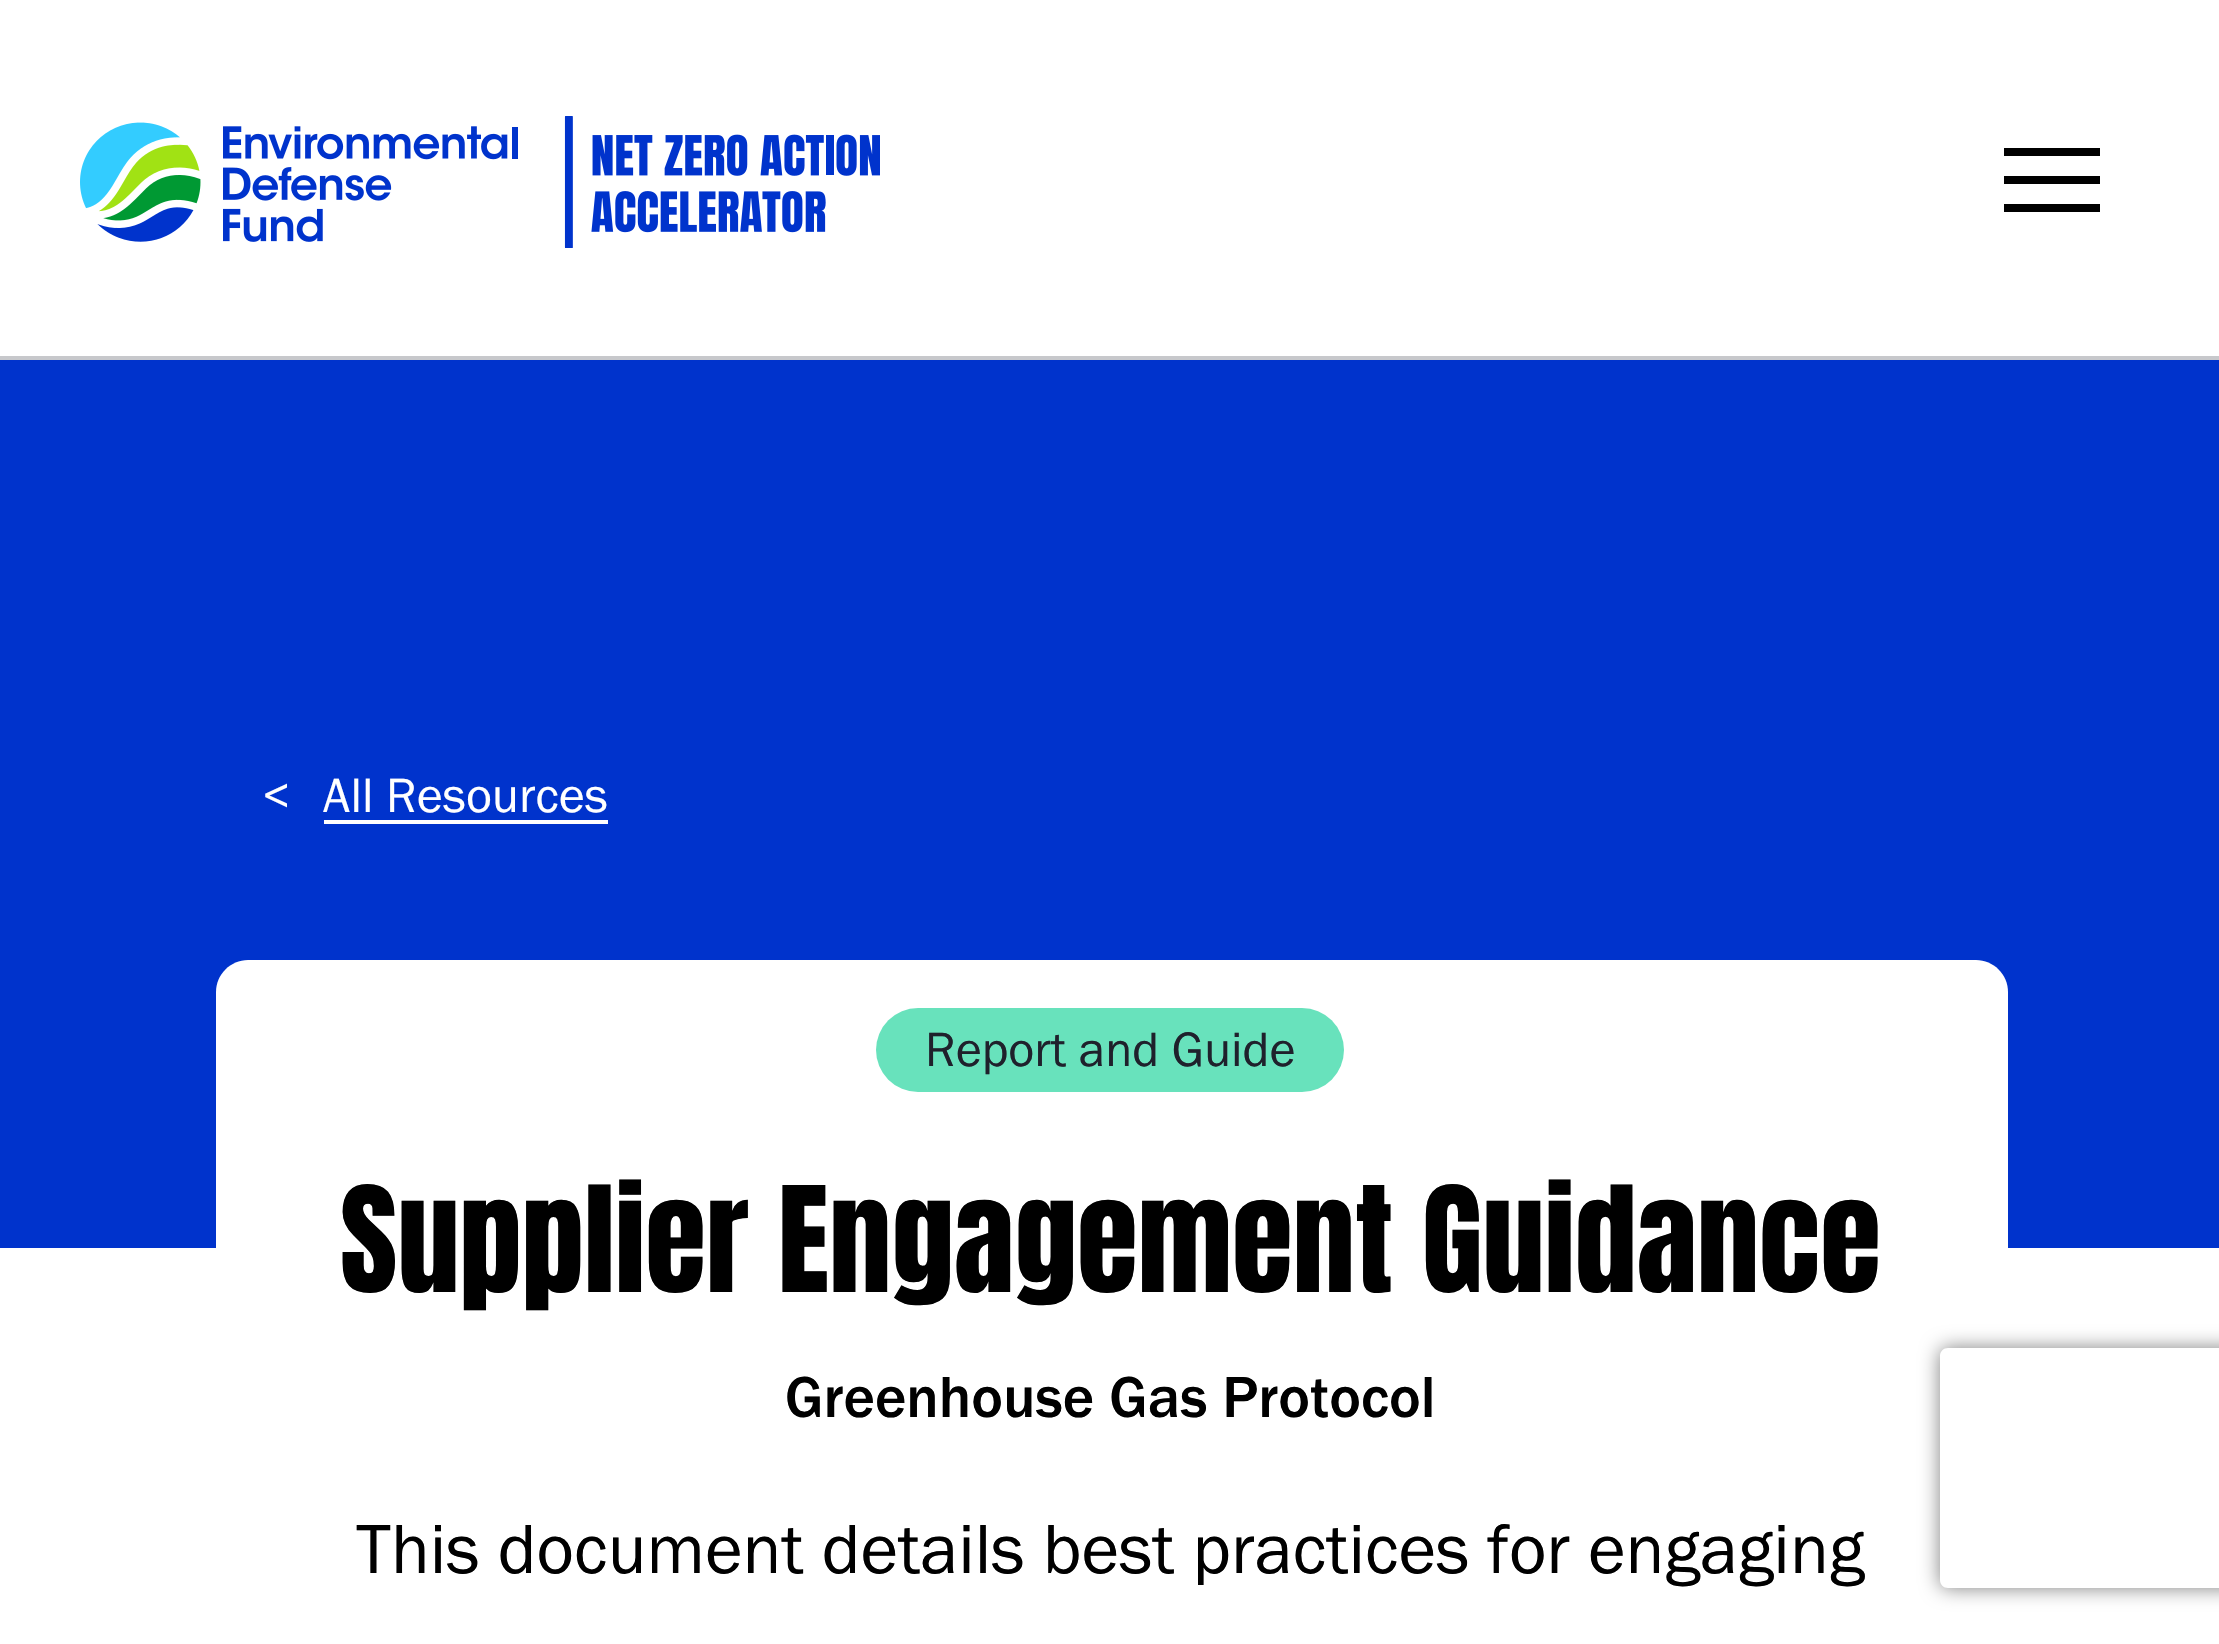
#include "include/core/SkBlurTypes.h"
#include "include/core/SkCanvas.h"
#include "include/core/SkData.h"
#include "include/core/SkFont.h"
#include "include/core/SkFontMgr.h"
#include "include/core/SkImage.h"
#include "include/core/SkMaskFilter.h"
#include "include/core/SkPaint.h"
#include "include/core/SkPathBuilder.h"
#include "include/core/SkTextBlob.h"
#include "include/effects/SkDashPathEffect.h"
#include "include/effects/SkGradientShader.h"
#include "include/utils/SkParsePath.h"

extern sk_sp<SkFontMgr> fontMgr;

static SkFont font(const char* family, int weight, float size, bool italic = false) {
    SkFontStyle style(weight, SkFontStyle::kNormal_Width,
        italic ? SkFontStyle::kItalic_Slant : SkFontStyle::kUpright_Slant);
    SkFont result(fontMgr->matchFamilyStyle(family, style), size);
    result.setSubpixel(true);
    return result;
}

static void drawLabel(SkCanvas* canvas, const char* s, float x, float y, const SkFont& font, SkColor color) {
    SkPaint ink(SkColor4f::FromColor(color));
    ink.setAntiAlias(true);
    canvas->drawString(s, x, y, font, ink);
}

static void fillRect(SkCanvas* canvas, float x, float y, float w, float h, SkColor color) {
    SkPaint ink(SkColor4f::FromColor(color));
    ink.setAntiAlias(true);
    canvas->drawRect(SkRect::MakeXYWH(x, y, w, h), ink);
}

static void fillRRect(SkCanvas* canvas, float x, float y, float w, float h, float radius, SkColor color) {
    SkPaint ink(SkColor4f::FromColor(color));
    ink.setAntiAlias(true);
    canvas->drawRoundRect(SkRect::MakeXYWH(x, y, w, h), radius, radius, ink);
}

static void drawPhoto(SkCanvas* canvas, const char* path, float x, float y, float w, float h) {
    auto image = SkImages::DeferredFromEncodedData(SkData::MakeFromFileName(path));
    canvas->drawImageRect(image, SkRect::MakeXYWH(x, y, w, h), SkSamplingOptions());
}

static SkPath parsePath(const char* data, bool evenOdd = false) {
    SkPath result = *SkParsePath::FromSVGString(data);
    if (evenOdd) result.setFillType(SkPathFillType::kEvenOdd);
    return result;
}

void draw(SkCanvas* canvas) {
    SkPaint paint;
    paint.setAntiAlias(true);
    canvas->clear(0xFFFFFFFF);
    fillRect(canvas, 0, 356, 2219, 4, 0xFFC7C8CB);
    drawPhoto(canvas, "assets/img1.png", 80, 116, 800, 132);
    fillRect(canvas, 2004, 176, 96, 8, 0xFF000000);
    fillRect(canvas, 2004, 148, 96, 8, 0xFF000000);
    fillRect(canvas, 2004, 204, 96, 8, 0xFF000000);
    fillRect(canvas, 0, 360, 2219, 888, 0xFF0033CC);
    SkFont font1 = font("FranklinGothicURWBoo", 400, 50);
    drawLabel(canvas, "<", 262, 812, font1, 0xFFFFFFFF);
    drawLabel(canvas, "All Resources", 323, 812, font1, 0xFFFFFFFF);
    fillRect(canvas, 324, 820, 284, 4, 0xFFFFFFFF);
    paint.setColor(0xFFFFFFFF);
    canvas->drawPath(parsePath("M248 960H1976C1993.5 960 2008 974.5 2008 992V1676H216V992C216 974.5 230.5 960 248 960Z"), paint);
    fillRRect(canvas, 876, 1008, 468, 84, 42, 0xFF68E2BC);
    drawLabel(canvas, "Report and Guide", 925, 1066, font1, 0xFF1F212C);
    SkFont font2 = font("Anton", 400, 124.5f);
    drawLabel(canvas, "Supplier Engagement Guidance", 340, 1292, font2, 0xFF000000);
    SkFont font3 = font("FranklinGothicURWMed", 400, 60);
    drawLabel(canvas, "Greenhouse Gas Protocol", 785, 1417, font3, 0xFF000000);
    SkFont font4 = font("FranklinGothicURWBoo", 400, 72);
    drawLabel(canvas, "This document details best practices for engaging", 356, 1573, font4, 0xFF000000);
    canvas->save();
    canvas->clipPath(parsePath("M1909 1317H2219V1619H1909ZM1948 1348H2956C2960.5 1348 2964 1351.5 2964 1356V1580C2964 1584.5 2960.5 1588 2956 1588H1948C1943.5 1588 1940 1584.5 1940 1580V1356C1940 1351.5 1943.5 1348 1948 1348Z", true), true);
    paint.setColor(0xFF808080);
    paint.setMaskFilter(SkMaskFilter::MakeBlur(kNormal_SkBlurStyle, 10));
    canvas->drawRoundRect(SkRect::MakeXYWH(1940, 1348, 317, 240), 8, 8, paint);
    paint.setMaskFilter(nullptr);
    canvas->restore();
}
